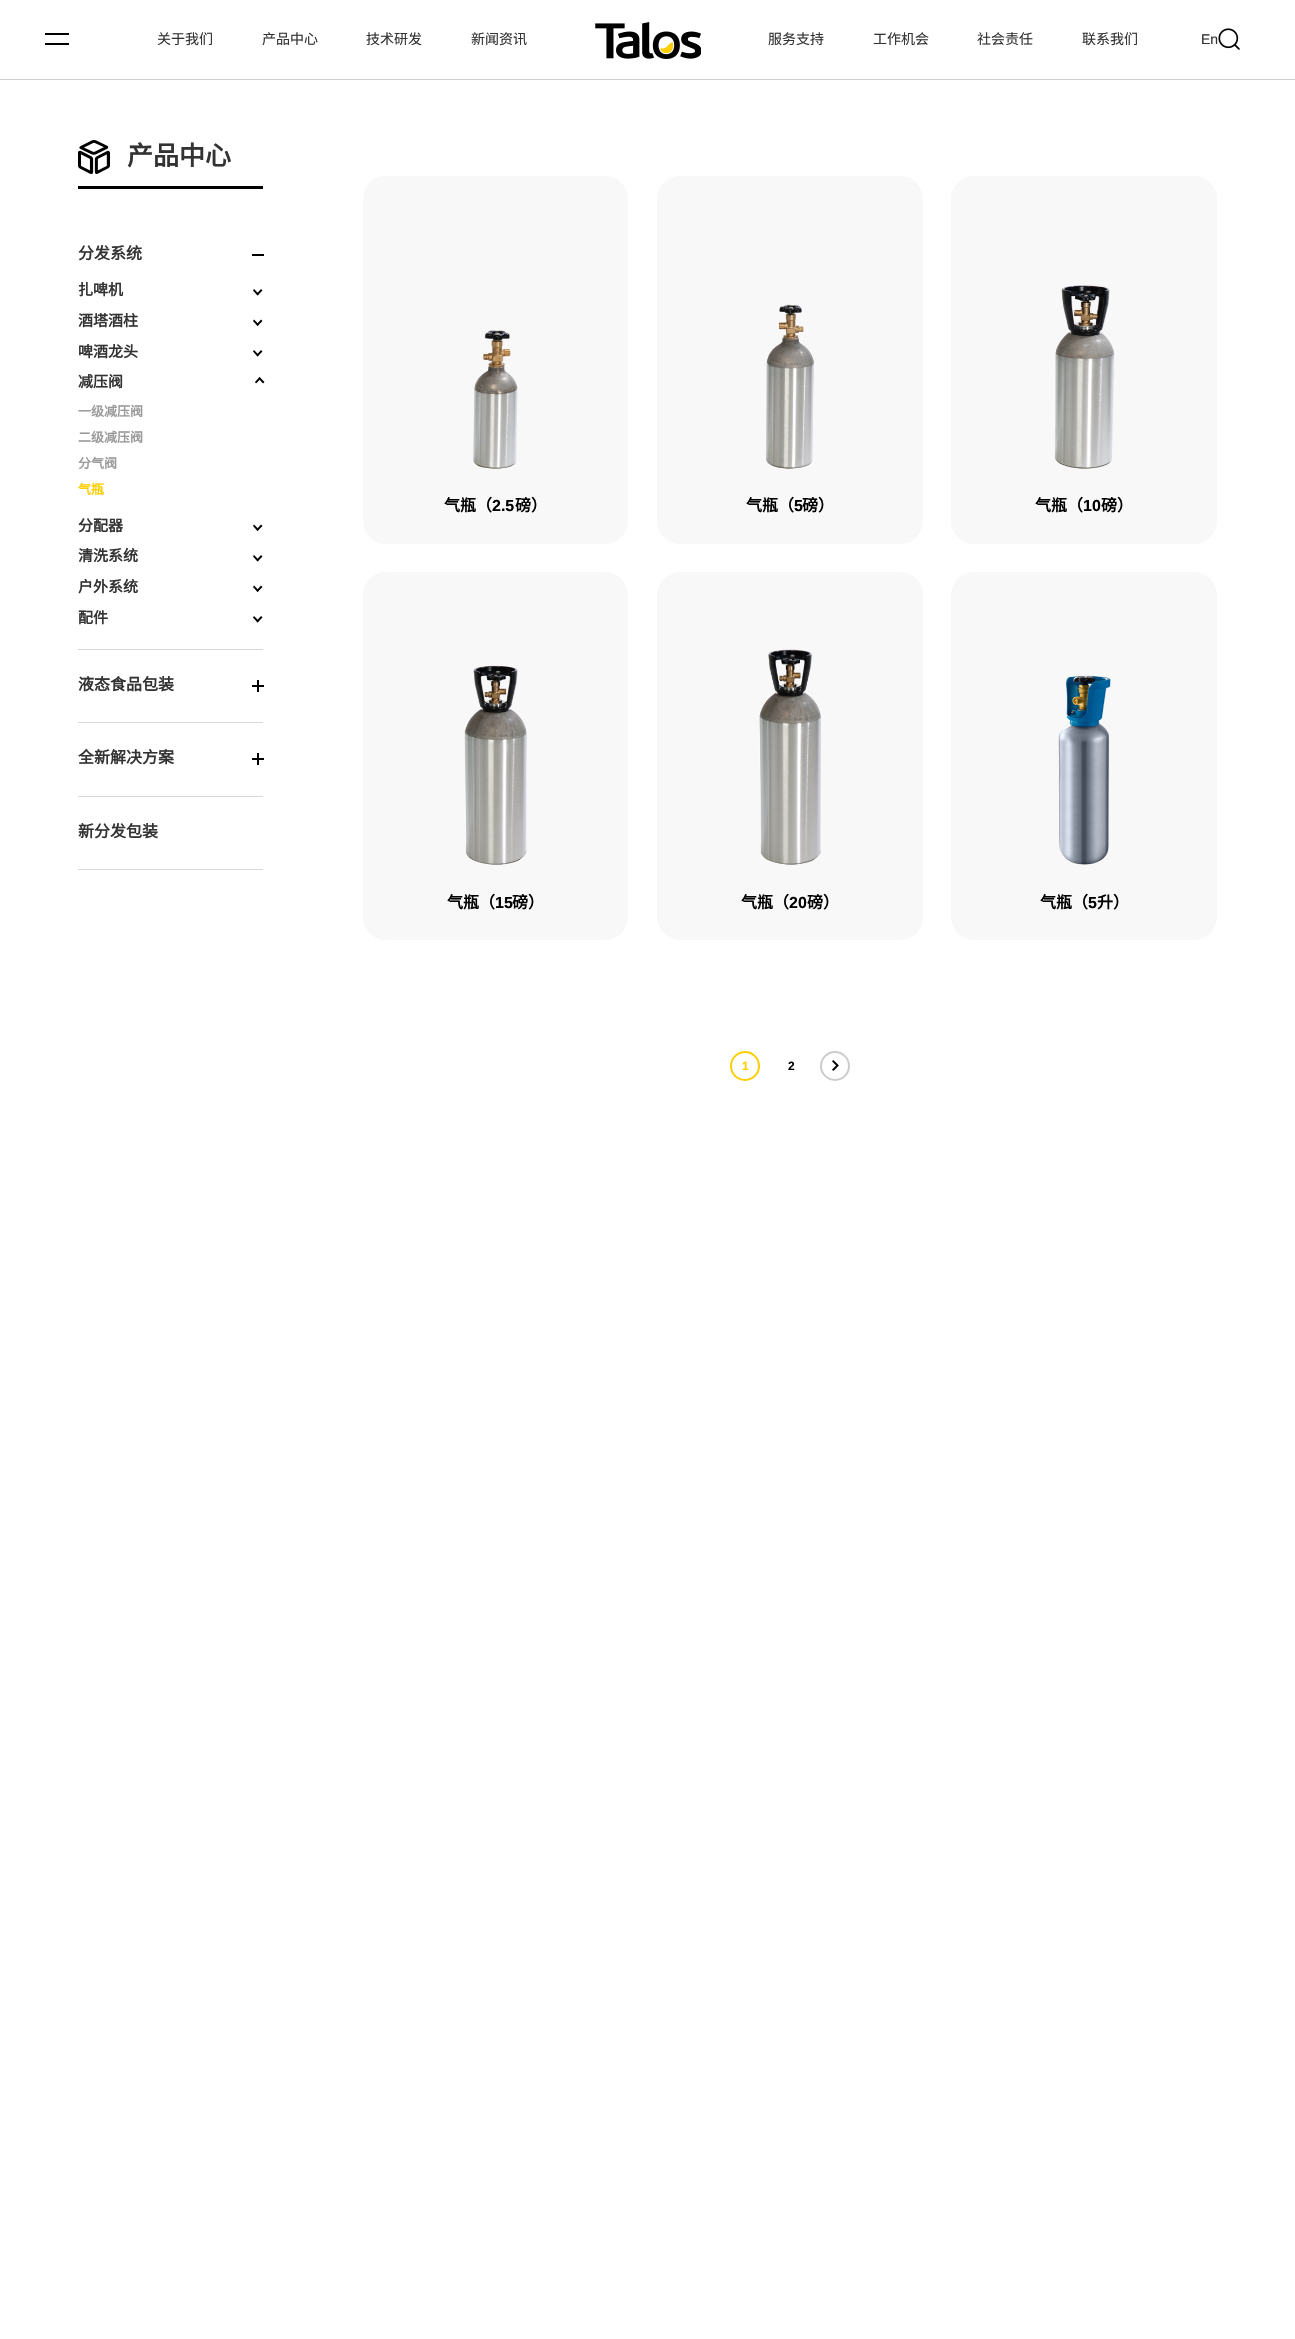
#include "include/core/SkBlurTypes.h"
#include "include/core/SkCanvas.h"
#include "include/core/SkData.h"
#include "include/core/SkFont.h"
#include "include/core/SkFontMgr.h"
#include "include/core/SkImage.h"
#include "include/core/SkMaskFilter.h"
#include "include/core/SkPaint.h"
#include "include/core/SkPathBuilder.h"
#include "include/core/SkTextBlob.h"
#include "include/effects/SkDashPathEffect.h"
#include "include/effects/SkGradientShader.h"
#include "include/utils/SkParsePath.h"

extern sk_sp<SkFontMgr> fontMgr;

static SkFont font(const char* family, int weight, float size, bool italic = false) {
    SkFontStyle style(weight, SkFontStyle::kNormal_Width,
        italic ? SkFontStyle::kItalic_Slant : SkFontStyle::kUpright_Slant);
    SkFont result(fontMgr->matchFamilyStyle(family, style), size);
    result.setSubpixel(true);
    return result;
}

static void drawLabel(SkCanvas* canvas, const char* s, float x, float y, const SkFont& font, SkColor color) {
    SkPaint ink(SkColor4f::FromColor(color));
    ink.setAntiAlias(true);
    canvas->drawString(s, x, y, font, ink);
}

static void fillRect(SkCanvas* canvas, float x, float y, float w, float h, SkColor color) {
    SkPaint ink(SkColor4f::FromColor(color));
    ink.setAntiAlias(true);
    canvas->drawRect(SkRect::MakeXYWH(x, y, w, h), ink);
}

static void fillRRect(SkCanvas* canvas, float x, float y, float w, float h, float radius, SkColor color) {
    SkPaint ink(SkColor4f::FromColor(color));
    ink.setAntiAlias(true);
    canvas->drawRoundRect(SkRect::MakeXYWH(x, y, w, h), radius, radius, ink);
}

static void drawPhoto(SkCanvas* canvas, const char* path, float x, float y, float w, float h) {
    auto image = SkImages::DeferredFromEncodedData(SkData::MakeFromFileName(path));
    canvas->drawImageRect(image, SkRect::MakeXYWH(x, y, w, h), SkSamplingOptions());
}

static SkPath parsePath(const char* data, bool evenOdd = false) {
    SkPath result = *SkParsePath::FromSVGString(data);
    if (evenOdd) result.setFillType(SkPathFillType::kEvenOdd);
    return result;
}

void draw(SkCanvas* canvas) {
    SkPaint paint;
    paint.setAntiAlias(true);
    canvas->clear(0xFFFFFFFF);
    fillRect(canvas, 0, 79, 1295, 1, 0xFFD1D1D1);
    fillRect(canvas, 45, 33, 24, 2, 0xFF000000);
    fillRect(canvas, 45, 43, 24, 2, 0xFF000000);
    SkFont font1 = font("Noto Sans CJK SC", 400, 14);
    drawLabel(canvas, "关于我们", 157, 44, font1, 0xFF333333);
    drawLabel(canvas, "产品中心", 262, 44, font1, 0xFF333333);
    drawLabel(canvas, "技术研发", 366, 44, font1, 0xFF333333);
    drawLabel(canvas, "新闻资讯", 471, 44, font1, 0xFF333333);
    drawPhoto(canvas, "assets/img1.png", 595, 22, 106, 37);
    drawLabel(canvas, "服务支持", 768, 44, font1, 0xFF333333);
    drawLabel(canvas, "工作机会", 873, 44, font1, 0xFF333333);
    drawLabel(canvas, "社会责任", 977, 44, font1, 0xFF333333);
    drawLabel(canvas, "联系我们", 1082, 44, font1, 0xFF333333);
    SkFont font2 = font("Liberation Sans", 400, 14);
    drawLabel(canvas, "En", 1201, 44, font2, 0xFF333333);
    drawPhoto(canvas, "assets/img2.png", 1218, 28, 22, 22);
    fillRect(canvas, 78, 186, 185, 3, 0xFF000000);
    drawPhoto(canvas, "assets/img3.png", 78, 140, 32, 34);
    SkFont font3 = font("Noto Sans CJK SC", 700, 26);
    drawLabel(canvas, "产品中心", 127, 165, font3, 0xFF333333);
    fillRect(canvas, 78, 649, 185, 1, 0xFFD8D8D8);
    SkFont font4 = font("Noto Sans CJK SC", 700, 16);
    drawLabel(canvas, "分发系统", 78, 259, font4, 0xFF333333);
    fillRect(canvas, 252, 254, 12, 2, 0xFF000000);
    SkFont font5 = font("Noto Sans CJK SC", 700, 15);
    drawLabel(canvas, "扎啤机", 78, 295, font5, 0xFF333333);
    paint.setColor(0xFF000000);
    canvas->drawPath(parsePath("M257.5 295.5L256.5 294L261 289L262.5 290.5Z"), paint);
    canvas->drawPath(parsePath("M257.5 295.5L253 290.5L254 289L259 294ZM257.5 326L256.5 324.5L261 319.5L262.5 321Z"), paint);
    drawLabel(canvas, "酒塔酒柱", 78, 326, font5, 0xFF333333);
    canvas->drawPath(parsePath("M257.5 326L253 321L254 319.5L259 324.5ZM257.5 356.5L256.5 355L261 350L262.5 351.5Z"), paint);
    drawLabel(canvas, "啤酒龙头", 78, 357, font5, 0xFF333333);
    canvas->drawPath(parsePath("M257.5 356.5L253 351.5L254 350L259 355ZM259.5 377L261 378.5L256 383.5L255 382Z"), paint);
    drawLabel(canvas, "减压阀", 78, 387, font5, 0xFF333333);
    canvas->drawPath(parsePath("M259.5 377L264.5 382L263 383.5L258.5 378.5Z"), paint);
    SkFont font6 = font("Noto Sans CJK SC", 700, 13);
    drawLabel(canvas, "一级减压阀", 78, 416, font6, 0xFF999999);
    drawLabel(canvas, "二级减压阀", 78, 442, font6, 0xFF999999);
    drawLabel(canvas, "分气阀", 78, 468, font6, 0xFF999999);
    drawLabel(canvas, "气瓶", 78, 494, font6, 0xFFFDCE00);
    drawLabel(canvas, "分配器", 78, 531, font5, 0xFF333333);
    canvas->drawPath(parsePath("M257.5 531L256.5 529.5L261 524.5L262.5 526Z"), paint);
    canvas->drawPath(parsePath("M257.5 531L253 526L254 524.5L259 529.5ZM257.5 561.5L256.5 560L261 555L262.5 556.5Z"), paint);
    drawLabel(canvas, "清洗系统", 78, 561, font5, 0xFF333333);
    canvas->drawPath(parsePath("M257.5 561.5L253 556.5L254 555L259 560ZM257.5 592L256.5 590.5L261 585.5L262.5 587Z"), paint);
    drawLabel(canvas, "户外系统", 78, 592, font5, 0xFF333333);
    canvas->drawPath(parsePath("M257.5 592L253 587L254 585.5L259 590.5ZM257.5 622.5L256.5 621L261 616L262.5 617.5Z"), paint);
    drawLabel(canvas, "配件", 78, 623, font5, 0xFF333333);
    canvas->drawPath(parsePath("M257.5 622.5L253 617.5L254 616L259 621Z"), paint);
    fillRect(canvas, 78, 722, 185, 1, 0xFFD8D8D8);
    drawLabel(canvas, "液态食品包装", 78, 690, font4, 0xFF333333);
    fillRect(canvas, 257, 680, 2, 12, 0xFF000000);
    fillRect(canvas, 252, 685, 12, 2, 0xFF000000);
    fillRect(canvas, 78, 796, 185, 1, 0xFFD8D8D8);
    drawLabel(canvas, "全新解决方案", 78, 763, font4, 0xFF333333);
    fillRect(canvas, 257, 753, 2, 12, 0xFF000000);
    fillRect(canvas, 252, 758, 12, 2, 0xFF000000);
    fillRect(canvas, 78, 869, 185, 1, 0xFFD8D8D8);
    drawLabel(canvas, "新分发包装", 78, 837, font4, 0xFF333333);
    fillRRect(canvas, 363, 176, 265, 368, 23, 0xFFF8F8F8);
    drawPhoto(canvas, "assets/img4.png", 473, 330, 45, 139);
    drawLabel(canvas, "气瓶（", 444, 511, font4, 0xFF000000);
    SkFont font7 = font("Liberation Sans", 700, 16);
    drawLabel(canvas, "2.5", 492, 511, font7, 0xFF000000);
    drawLabel(canvas, "磅）", 515, 511, font4, 0xFF000000);
    fillRRect(canvas, 657, 176, 266, 368, 23, 0xFFF8F8F8);
    drawPhoto(canvas, "assets/img5.png", 766, 304, 48, 165);
    drawLabel(canvas, "气瓶（", 746, 511, font4, 0xFF000000);
    drawLabel(canvas, "5", 794, 511, font7, 0xFF000000);
    drawLabel(canvas, "磅）", 802, 511, font4, 0xFF000000);
    fillRRect(canvas, 951, 176, 266, 368, 23, 0xFFF8F8F8);
    drawPhoto(canvas, "assets/img6.png", 1054, 285, 61, 184);
    drawLabel(canvas, "气瓶（", 1035, 511, font4, 0xFF000000);
    drawLabel(canvas, "10", 1083, 511, font7, 0xFF000000);
    drawLabel(canvas, "磅）", 1101, 511, font4, 0xFF000000);
    fillRRect(canvas, 363, 572, 265, 368, 23, 0xFFF8F8F8);
    drawPhoto(canvas, "assets/img7.png", 464, 665, 63, 200);
    drawLabel(canvas, "气瓶（", 447, 908, font4, 0xFF000000);
    drawLabel(canvas, "15", 495, 908, font7, 0xFF000000);
    drawLabel(canvas, "磅）", 512, 908, font4, 0xFF000000);
    fillRRect(canvas, 657, 572, 266, 368, 23, 0xFFF8F8F8);
    drawPhoto(canvas, "assets/img8.png", 759, 649, 62, 216);
    drawLabel(canvas, "气瓶（", 741, 908, font4, 0xFF000000);
    drawLabel(canvas, "20", 789, 908, font7, 0xFF000000);
    drawLabel(canvas, "磅）", 807, 908, font4, 0xFF000000);
    fillRRect(canvas, 951, 572, 266, 368, 23, 0xFFF8F8F8);
    drawPhoto(canvas, "assets/img9.png", 1058, 675, 53, 190);
    drawLabel(canvas, "气瓶（", 1040, 908, font4, 0xFF000000);
    drawLabel(canvas, "5", 1088, 908, font7, 0xFF000000);
    drawLabel(canvas, "升）", 1097, 908, font4, 0xFF000000);
    paint.setStroke(true);
    paint.setStrokeWidth(2);
    paint.setColor(0xFFFDCE00);
    canvas->drawCircle(745, 1066, 14, paint);
    SkFont font8 = font("Liberation Sans", 700, 12);
    drawLabel(canvas, "1", 742, 1070, font8, 0xFFFDCE00);
    drawLabel(canvas, "2", 788, 1070, font8, 0xFF000000);
    paint.setColor(0xFFCCCCCC);
    canvas->drawCircle(835, 1066, 14, paint);
    drawPhoto(canvas, "assets/img10.png", 832, 1060, 7, 11);
}
